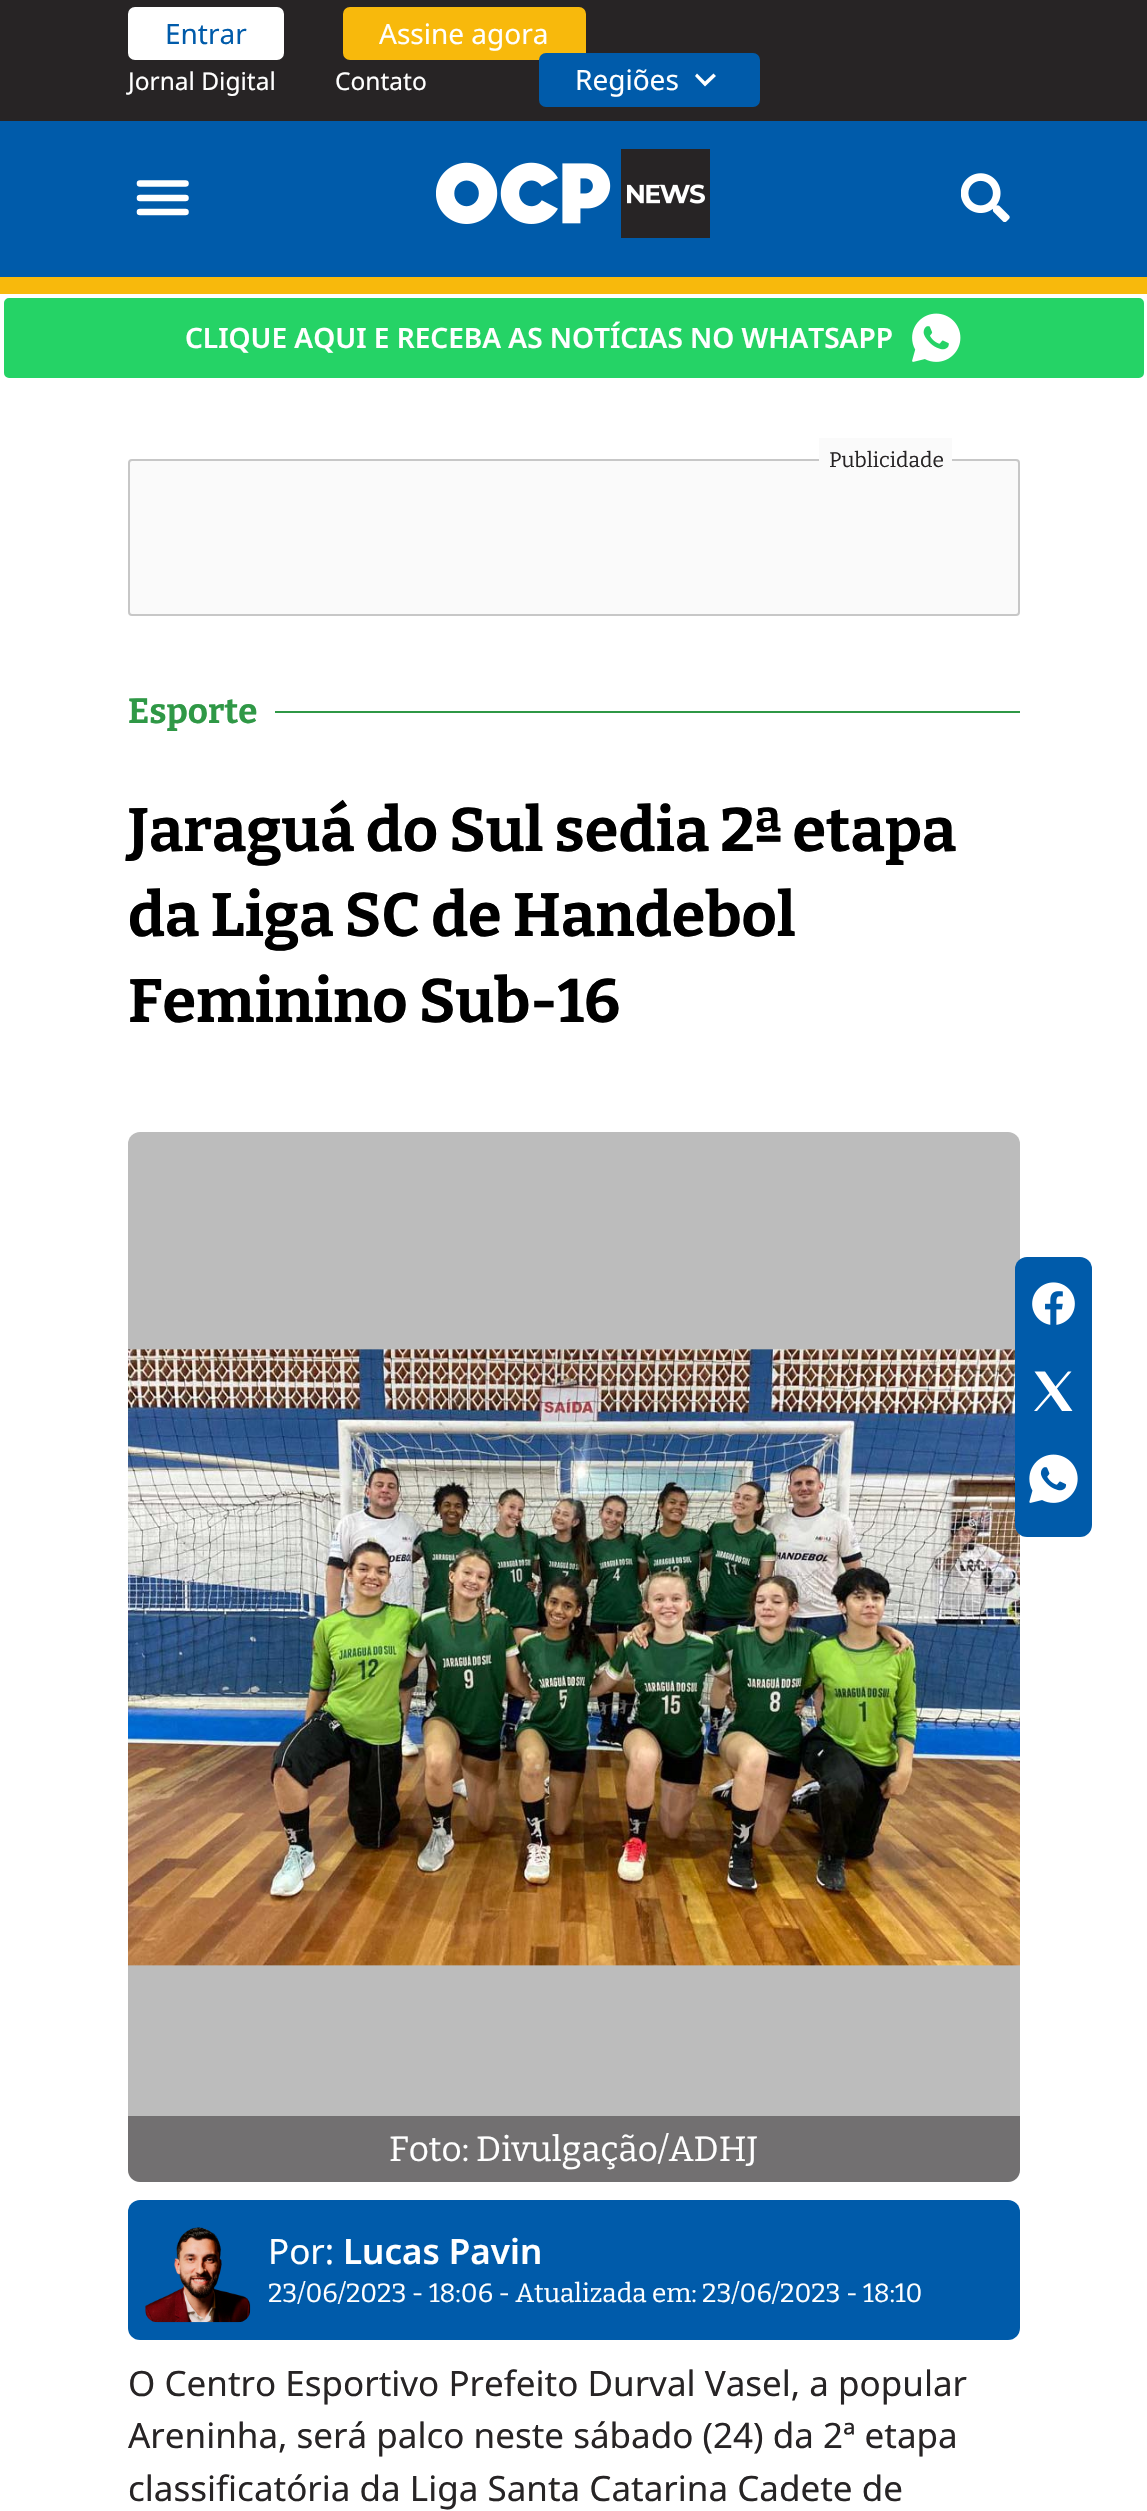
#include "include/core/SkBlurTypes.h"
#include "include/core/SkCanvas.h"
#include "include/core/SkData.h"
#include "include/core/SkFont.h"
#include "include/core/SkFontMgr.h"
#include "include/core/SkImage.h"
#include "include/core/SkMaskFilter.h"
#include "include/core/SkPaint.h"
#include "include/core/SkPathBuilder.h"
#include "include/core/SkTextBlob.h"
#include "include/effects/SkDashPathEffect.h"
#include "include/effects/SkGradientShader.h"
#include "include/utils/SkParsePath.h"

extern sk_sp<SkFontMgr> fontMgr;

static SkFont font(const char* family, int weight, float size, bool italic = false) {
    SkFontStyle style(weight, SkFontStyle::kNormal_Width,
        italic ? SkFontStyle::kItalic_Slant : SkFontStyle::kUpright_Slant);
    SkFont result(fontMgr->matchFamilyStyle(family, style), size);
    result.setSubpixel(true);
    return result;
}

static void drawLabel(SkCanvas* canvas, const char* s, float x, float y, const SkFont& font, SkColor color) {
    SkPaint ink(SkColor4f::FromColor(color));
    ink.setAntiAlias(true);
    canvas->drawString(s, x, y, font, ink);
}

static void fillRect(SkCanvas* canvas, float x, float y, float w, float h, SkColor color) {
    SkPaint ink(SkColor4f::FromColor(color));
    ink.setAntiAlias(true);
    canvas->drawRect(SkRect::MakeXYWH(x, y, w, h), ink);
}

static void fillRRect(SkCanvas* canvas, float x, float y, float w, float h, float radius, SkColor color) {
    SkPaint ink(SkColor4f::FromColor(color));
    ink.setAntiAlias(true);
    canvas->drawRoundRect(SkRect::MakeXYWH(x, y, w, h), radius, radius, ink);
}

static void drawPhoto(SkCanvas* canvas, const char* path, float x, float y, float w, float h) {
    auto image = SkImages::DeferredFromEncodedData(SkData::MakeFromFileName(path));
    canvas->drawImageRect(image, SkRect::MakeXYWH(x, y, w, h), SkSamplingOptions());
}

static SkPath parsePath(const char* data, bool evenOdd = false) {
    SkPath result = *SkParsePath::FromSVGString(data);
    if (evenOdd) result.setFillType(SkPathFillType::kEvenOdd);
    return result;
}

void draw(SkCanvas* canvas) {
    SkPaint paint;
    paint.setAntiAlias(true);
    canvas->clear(0xFFFFFFFF);
    fillRect(canvas, 0, 0, 1147, 121, 0xFF272425);
    paint.setColor(0xFFFFFFFF);
    canvas->drawRoundRect(SkRect::MakeXYWH(129, 8, 154, 51), 6, 6, paint);
    paint.setStroke(true);
    paint.setStrokeWidth(2);
    canvas->drawRoundRect(SkRect::MakeXYWH(129, 8, 154, 51), 6, 6, paint);
    SkFont font1 = font("Noto Sans", 400, 28);
    drawLabel(canvas, "Entrar", 165, 44, font1, 0xFF005BAA);
    paint.setStroke(false);
    paint.setColor(0xFFF8B90C);
    canvas->drawRoundRect(SkRect::MakeXYWH(344, 8, 241, 51), 6, 6, paint);
    paint.setStroke(true);
    canvas->drawRoundRect(SkRect::MakeXYWH(344, 8, 241, 51), 6, 6, paint);
    drawLabel(canvas, "Assine agora", 379, 44, font1, 0xFFFFFFFF);
    SkFont font2 = font("Noto Sans", 400, 24.5f);
    drawLabel(canvas, "Jornal Digital", 128, 90, font2, 0xFFFFFFFF);
    drawLabel(canvas, "Contato", 335, 90, font2, 0xFFFFFFFF);
    paint.setStroke(false);
    paint.setColor(0xFF005BAA);
    canvas->drawRoundRect(SkRect::MakeXYWH(540, 54, 219, 52), 6, 6, paint);
    paint.setStroke(true);
    canvas->drawRoundRect(SkRect::MakeXYWH(540, 54, 219, 52), 6, 6, paint);
    drawLabel(canvas, "Regiões", 575, 90, font1, 0xFFFFFFFF);
    paint.setStroke(false);
    paint.setColor(0xFFFFFFFF);
    canvas->drawPath(parsePath("M705 86.5L695 76L697 73.5L705 81.5L713.5 73.5L716 76Z"), paint);
    fillRect(canvas, 0, 121, 1147, 156, 0xFF005BAA);
    fillRect(canvas, 0, 277, 1147, 17, 0xFFF8B90C);
    paint.setStroke(true);
    paint.setStrokeWidth(6.6f);
    paint.setStrokeCap(SkPaint::kRound_Cap);
    canvas->drawPath(parsePath("M140 183.5H185.5M140 198H185.5M140 212H185.5"), paint);
    drawPhoto(canvas, "assets/img1.png", 436, 149, 274, 89);
    drawPhoto(canvas, "assets/img2.png", 961, 173, 49, 49);
    paint.setStroke(false);
    paint.setColor(0xFF25D366);
    canvas->drawRoundRect(SkRect::MakeXYWH(2, 296, 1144, 84), 7, 7, paint);
    paint.setStroke(true);
    paint.setStrokeWidth(4);
    paint.setStrokeCap(SkPaint::kButt_Cap);
    paint.setColor(0xFFFFFFFF);
    canvas->drawRoundRect(SkRect::MakeXYWH(2, 296, 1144, 84), 7, 7, paint);
    SkFont font3 = font("Noto Sans", 600, 28);
    drawLabel(canvas, "CLIQUE AQUI E RECEBA AS NOTÍCIAS NO WHATSAPP", 185, 348, font3, 0xFFFFFFFF);
    drawPhoto(canvas, "assets/img3.png", 912, 313, 49, 49);
    paint.setStroke(false);
    paint.setColor(0xFFFAFAFA);
    canvas->drawRoundRect(SkRect::MakeXYWH(129, 460, 890, 155), 3, 3, paint);
    paint.setStroke(true);
    paint.setStrokeWidth(2);
    paint.setColor(0xFFC7C7C7);
    canvas->drawRoundRect(SkRect::MakeXYWH(129, 460, 890, 155), 3, 3, paint);
    fillRect(canvas, 819, 438, 133, 23, 0xFFFAFAFA);
    SkFont font4 = font("Bitter", 400, 21);
    drawLabel(canvas, "Publicidade", 829, 467, font4, 0xFF272425);
    SkFont font5 = font("Bitter", 700, 35);
    drawLabel(canvas, "Esporte", 128, 723, font5, 0xFF2F9846);
    fillRect(canvas, 275, 711, 745, 2, 0xFF2F9846);
    SkFont font6 = font("Bitter", 700, 61.25f);
    drawLabel(canvas, "Jaraguá do Sul sedia 2ª etapa", 128, 851, font6, 0xFF000000);
    drawLabel(canvas, "da Liga SC de Handebol", 128, 936, font6, 0xFF000000);
    drawLabel(canvas, "Feminino Sub-16", 128, 1022, font6, 0xFF000000);
    fillRRect(canvas, 128, 1132, 892, 1050, 12, 0xFFBCBCBC);
    drawPhoto(canvas, "assets/img6.png", 128, 1349, 892, 617);
    fillRRect(canvas, 1015, 1257, 77, 280, 12, 0xFF005BAA);
    drawPhoto(canvas, "assets/img4.png", 1032, 1282, 43, 43);
    paint.setStroke(false);
    paint.setColor(0xFFFFFFFF);
    canvas->drawPath(parsePath("M1034.5 1371.5L1049.5 1393L1034 1411H1037L1051 1395L1062 1411H1072.5L1057 1388.5L1071.5 1371.5H1068L1055.5 1386.5L1045 1371.5Z"), paint);
    drawPhoto(canvas, "assets/img5.png", 1029, 1454, 49, 49);
    paint.setColor(0x80272425);
    canvas->drawPath(parsePath("M128 2116H1020V2170C1020 2176.5 1014.5 2182 1008 2182H140C133.5 2182 128 2176.5 128 2170Z"), paint);
    SkFont font7 = font("Bitter", 400, 35);
    drawLabel(canvas, "Foto: Divulgação/ADHJ", 389, 2161, font7, 0xFFFFFFFF);
    fillRRect(canvas, 128, 2200, 892, 140, 12, 0xFF005BAA);
    drawPhoto(canvas, "assets/img7.png", 145, 2227, 106, 96);
    SkFont font8 = font("Noto Sans", 400, 35);
    drawLabel(canvas, "Por:", 268, 2264, font8, 0xFFFFFFFF);
    SkFont font9 = font("Noto Sans", 600, 35);
    drawLabel(canvas, "Lucas Pavin", 343, 2264, font9, 0xFFFFFFFF);
    SkFont font10 = font("Bitter", 400, 26.25f);
    drawLabel(canvas, "23/06/2023 - 18:06 - Atualizada em: 23/06/2023 - 18:10", 268, 2302, font10, 0xFFFFFFFF);
    drawLabel(canvas, "O Centro Esportivo Prefeito Durval Vasel, a popular", 128, 2396, font8, 0xFF272425);
    drawLabel(canvas, "Areninha, será palco neste sábado (24) da 2ª etapa", 128, 2448, font8, 0xFF272425);
    drawLabel(canvas, "classificatória da Liga Santa Catarina Cadete de", 128, 2501, font8, 0xFF272425);
}
